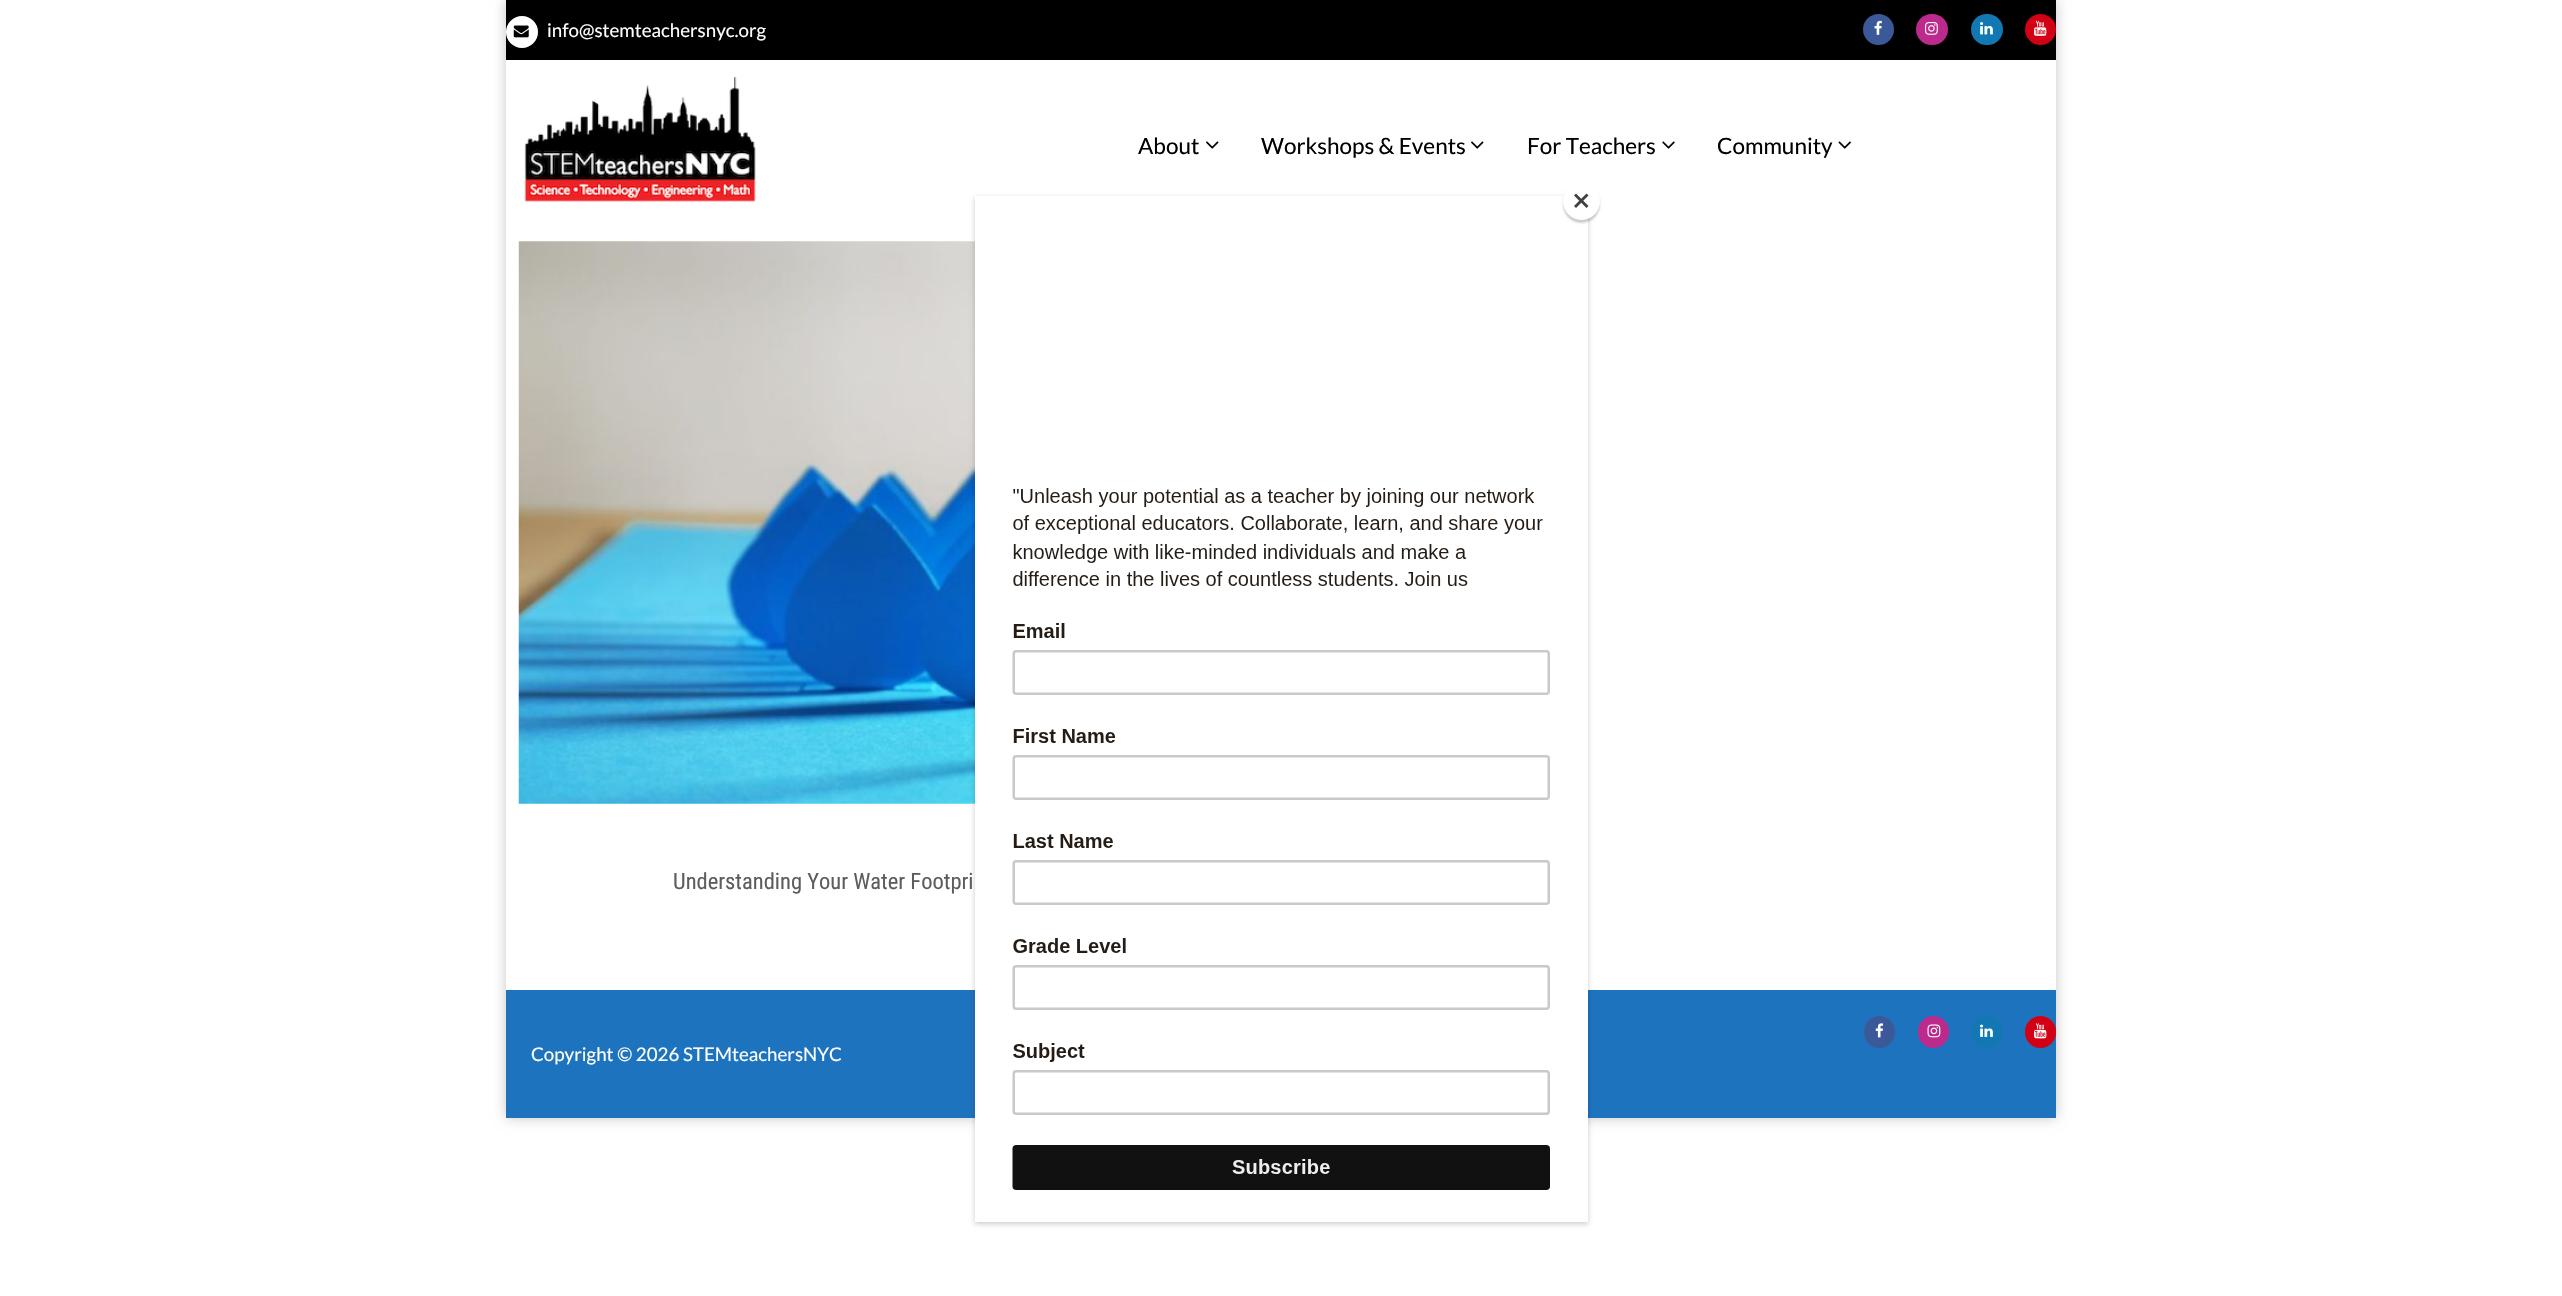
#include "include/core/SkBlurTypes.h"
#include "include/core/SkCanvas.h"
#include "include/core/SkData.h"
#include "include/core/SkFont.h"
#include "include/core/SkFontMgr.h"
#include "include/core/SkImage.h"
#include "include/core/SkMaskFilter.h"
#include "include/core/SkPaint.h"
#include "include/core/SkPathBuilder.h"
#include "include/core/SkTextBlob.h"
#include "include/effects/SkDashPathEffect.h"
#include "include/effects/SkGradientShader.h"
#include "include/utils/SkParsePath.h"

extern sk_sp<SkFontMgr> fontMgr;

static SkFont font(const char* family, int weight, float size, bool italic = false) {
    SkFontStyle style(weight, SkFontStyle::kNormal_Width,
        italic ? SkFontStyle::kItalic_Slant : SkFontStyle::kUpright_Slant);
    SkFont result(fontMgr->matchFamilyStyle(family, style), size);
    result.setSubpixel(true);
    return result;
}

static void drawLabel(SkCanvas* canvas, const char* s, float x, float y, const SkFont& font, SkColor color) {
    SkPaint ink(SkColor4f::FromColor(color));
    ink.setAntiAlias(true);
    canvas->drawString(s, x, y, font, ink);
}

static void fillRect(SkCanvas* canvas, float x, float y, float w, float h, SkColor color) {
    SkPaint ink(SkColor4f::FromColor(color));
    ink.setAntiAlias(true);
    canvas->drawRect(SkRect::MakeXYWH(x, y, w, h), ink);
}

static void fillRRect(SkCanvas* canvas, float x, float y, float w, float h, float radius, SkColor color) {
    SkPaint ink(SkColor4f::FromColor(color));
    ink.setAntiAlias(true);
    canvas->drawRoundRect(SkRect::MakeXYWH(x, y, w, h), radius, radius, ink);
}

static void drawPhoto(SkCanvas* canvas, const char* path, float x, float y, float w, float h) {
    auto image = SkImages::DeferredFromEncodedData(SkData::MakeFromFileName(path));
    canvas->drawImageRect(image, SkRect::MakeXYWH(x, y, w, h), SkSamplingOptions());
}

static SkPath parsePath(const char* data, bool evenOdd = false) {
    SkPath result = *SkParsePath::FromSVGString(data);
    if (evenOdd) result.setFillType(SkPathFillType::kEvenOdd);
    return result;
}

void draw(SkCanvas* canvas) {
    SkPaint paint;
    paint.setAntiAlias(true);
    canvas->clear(0xFFFFFFFF);
    paint.setColor(0xFFC7C7C7);
    paint.setMaskFilter(SkMaskFilter::MakeBlur(kNormal_SkBlurStyle, 6));
    canvas->drawRect(SkRect::MakeXYWH(506, 0, 1550, 1118), paint);
    paint.setMaskFilter(nullptr);
    fillRect(canvas, 506, 60, 1550, 930, 0xFFFFFFFF);
    fillRect(canvas, 506, 0, 1550, 60, 0xFF000000);
    paint.setColor(0xFFFFFFFF);
    canvas->drawCircle(522, 32, 16, paint);
    drawPhoto(canvas, "assets/img1.png", 513, 25, 16, 13);
    SkFont font1 = font("Lato", 400, 18.75f);
    drawLabel(canvas, "info@stemteachersnyc.org", 547, 37, font1, 0xFFFFFFFF);
    paint.setColor(0xFF3B5998);
    canvas->drawCircle(1878.5f, 29.5f, 15.5f, paint);
    drawPhoto(canvas, "assets/img2.png", 1874, 20, 8, 15);
    fillRRect(canvas, 1916, 14, 32, 31, 15.5f, 0xFFBC2A8D);
    drawPhoto(canvas, "assets/img3.png", 1925, 22, 13, 13);
    fillRRect(canvas, 1971, 14, 32, 31, 15.5f, 0xFF1178B3);
    drawPhoto(canvas, "assets/img4.png", 1980, 22, 13, 13);
    paint.setColor(0xFFD20014);
    canvas->drawCircle(2040.5f, 29.5f, 15.5f, paint);
    drawPhoto(canvas, "assets/img5.png", 2034, 20, 13, 16);
    drawPhoto(canvas, "assets/img6.png", 524, 76, 232, 126);
    SkFont font2 = font("Lato", 400, 22.5f);
    drawLabel(canvas, "About", 1138, 154, font2, 0xFF000000);
    drawPhoto(canvas, "assets/img7.png", 1206, 141, 13, 8);
    drawLabel(canvas, "Workshops & Events", 1261, 154, font2, 0xFF000000);
    drawPhoto(canvas, "assets/img7.png", 1471, 141, 13, 8);
    drawLabel(canvas, "For Teachers", 1527, 154, font2, 0xFF000000);
    drawPhoto(canvas, "assets/img8.png", 1662, 141, 13, 8);
    drawLabel(canvas, "Community", 1717, 154, font2, 0xFF000000);
    drawPhoto(canvas, "assets/img9.png", 1838, 141, 13, 8);
    drawPhoto(canvas, "assets/img10.png", 518, 241, 457, 563);
    SkFont font3 = font("Roboto Condensed", 400, 22.5f);
    drawLabel(canvas, "Understanding Your Water Footpri", 673, 889, font3, 0xFF5D5D5D);
    fillRect(canvas, 506, 990, 1550, 128, 0xFF1E73BE);
    fillRRect(canvas, 1864, 1016, 31, 32, 15.5f, 0xFF3B5998);
    drawPhoto(canvas, "assets/img11.png", 1875, 1023, 9, 15);
    fillRRect(canvas, 1918, 1016, 31, 32, 15.5f, 0xFFBC2A8D);
    drawPhoto(canvas, "assets/img12.png", 1927, 1024, 14, 14);
    paint.setColor(0xFF1178B3);
    canvas->drawCircle(1987, 1032, 16, paint);
    drawPhoto(canvas, "assets/img13.png", 1980, 1024, 13, 13);
    fillRRect(canvas, 2025, 1016, 31, 32, 15.5f, 0xFFD20014);
    drawPhoto(canvas, "assets/img14.png", 2034, 1023, 13, 16);
    drawLabel(canvas, "Copyright © 2026 STEMteachersNYC", 531, 1061, font1, 0xFFFFFFFF);
    paint.setColor(0x33000000);
    paint.setMaskFilter(SkMaskFilter::MakeBlur(kNormal_SkBlurStyle, 2.5f));
    canvas->drawRect(SkRect::MakeXYWH(975, 198, 613, 1026), paint);
    paint.setMaskFilter(nullptr);
    drawPhoto(canvas, "assets/img15.png", 975, 196, 613, 1026);
    paint.setMaskFilter(SkMaskFilter::MakeBlur(kNormal_SkBlurStyle, 1));
    canvas->drawRoundRect(SkRect::MakeXYWH(1563, 185, 37, 38), 18.5f, 18.5f, paint);
    paint.setMaskFilter(nullptr);
    paint.setColor(0xFFFFFFFF);
    canvas->drawCircle(1581.5f, 201.5f, 18.5f, paint);
    paint.setColor(0xFF414141);
    canvas->drawPath(parsePath("M1586.5 193.5L1588.5 195.5L1576 208L1574 206Z"), paint);
    canvas->drawPath(parsePath("M1574 195.5L1576 193.5L1588.5 206L1586.5 208Z"), paint);
}
